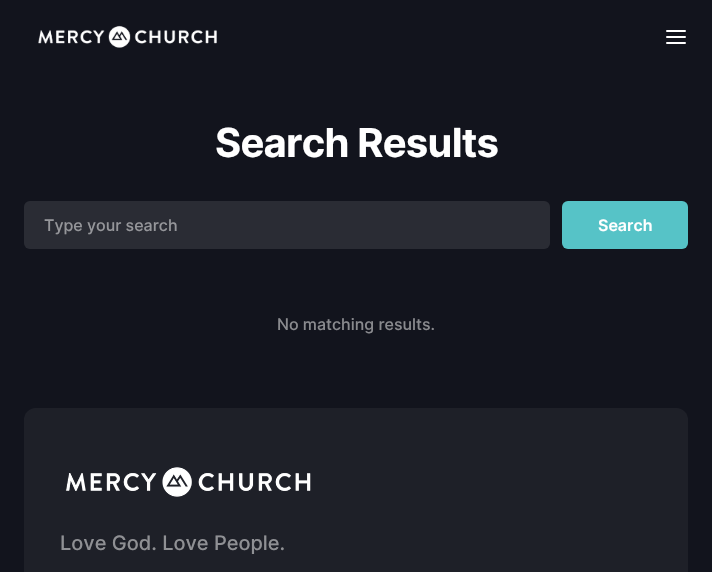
#include "include/core/SkBlurTypes.h"
#include "include/core/SkCanvas.h"
#include "include/core/SkData.h"
#include "include/core/SkFont.h"
#include "include/core/SkFontMgr.h"
#include "include/core/SkImage.h"
#include "include/core/SkMaskFilter.h"
#include "include/core/SkPaint.h"
#include "include/core/SkPathBuilder.h"
#include "include/core/SkTextBlob.h"
#include "include/effects/SkDashPathEffect.h"
#include "include/effects/SkGradientShader.h"
#include "include/utils/SkParsePath.h"

extern sk_sp<SkFontMgr> fontMgr;

static SkFont font(const char* family, int weight, float size, bool italic = false) {
    SkFontStyle style(weight, SkFontStyle::kNormal_Width,
        italic ? SkFontStyle::kItalic_Slant : SkFontStyle::kUpright_Slant);
    SkFont result(fontMgr->matchFamilyStyle(family, style), size);
    result.setSubpixel(true);
    return result;
}

static void drawLabel(SkCanvas* canvas, const char* s, float x, float y, const SkFont& font, SkColor color) {
    SkPaint ink(SkColor4f::FromColor(color));
    ink.setAntiAlias(true);
    canvas->drawString(s, x, y, font, ink);
}

static void drawTracked(SkCanvas* canvas, const char* s, float x, float y, const SkFont& font, const SkPaint& ink, float letter, float word) {
    std::vector<SkGlyphID> glyphs(font.countText(s, strlen(s), SkTextEncoding::kUTF8));
    std::vector<float> xs(glyphs.size());
    font.textToGlyphs(s, strlen(s), SkTextEncoding::kUTF8, glyphs);
    font.getXPos(glyphs, xs, x);
    float extra = 0;
    for (size_t i = 0; i < glyphs.size(); i++) {
        xs[i] += extra;
        extra += letter + word * (glyphs[i] == font.unicharToGlyph(' '));
    }
    canvas->drawTextBlob(SkTextBlob::MakeFromPosHGlyphs(glyphs, xs, y, font), 0, 0, ink);
}

static void fillRRect(SkCanvas* canvas, float x, float y, float w, float h, float radius, SkColor color) {
    SkPaint ink(SkColor4f::FromColor(color));
    ink.setAntiAlias(true);
    canvas->drawRoundRect(SkRect::MakeXYWH(x, y, w, h), radius, radius, ink);
}

static void drawPhoto(SkCanvas* canvas, const char* path, float x, float y, float w, float h) {
    auto image = SkImages::DeferredFromEncodedData(SkData::MakeFromFileName(path));
    canvas->drawImageRect(image, SkRect::MakeXYWH(x, y, w, h), SkSamplingOptions());
}

static SkPath parsePath(const char* data, bool evenOdd = false) {
    SkPath result = *SkParsePath::FromSVGString(data);
    if (evenOdd) result.setFillType(SkPathFillType::kEvenOdd);
    return result;
}

void draw(SkCanvas* canvas) {
    SkPaint paint;
    paint.setAntiAlias(true);
    canvas->clear(0xFF12141D);
    drawPhoto(canvas, "assets/img1.png", 38, 25, 179, 23);
    paint.setStroke(true);
    paint.setStrokeWidth(2);
    paint.setStrokeCap(SkPaint::kRound_Cap);
    paint.setStrokeJoin(SkPaint::kRound_Join);
    paint.setColor(0xFFFFFFFF);
    canvas->drawPath(parsePath("M667 37H685M667 31H685M667 43H685"), paint);
    SkFont font1 = font("Inter", 700, 40);
    paint.setStroke(false);
    drawTracked(canvas, "Search Results", 215, 157, font1, paint, -0.75f, 0);
    fillRRect(canvas, 24, 201, 526, 48, 6, 0xFF2A2C34);
    SkFont font2 = font("Inter", 500, 16);
    drawLabel(canvas, "Type your search", 44, 231, font2, 0xFF95969A);
    fillRRect(canvas, 562, 201, 126, 48, 6, 0xFF56C3C7);
    SkFont font3 = font("Inter", 600, 16);
    drawLabel(canvas, "Search", 598, 231, font3, 0xFFFFFFFF);
    drawLabel(canvas, "No matching results.", 277, 330, font2, 0xFF898A8E);
    fillRRect(canvas, 24, 408, 664, 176, 12, 0xFF1E2028);
    drawPhoto(canvas, "assets/img2.png", 65, 467, 246, 30);
    SkFont font4 = font("Inter", 500, 20);
    drawLabel(canvas, "Love God. Love People.", 60, 550, font4, 0xFF8F9094);
}
